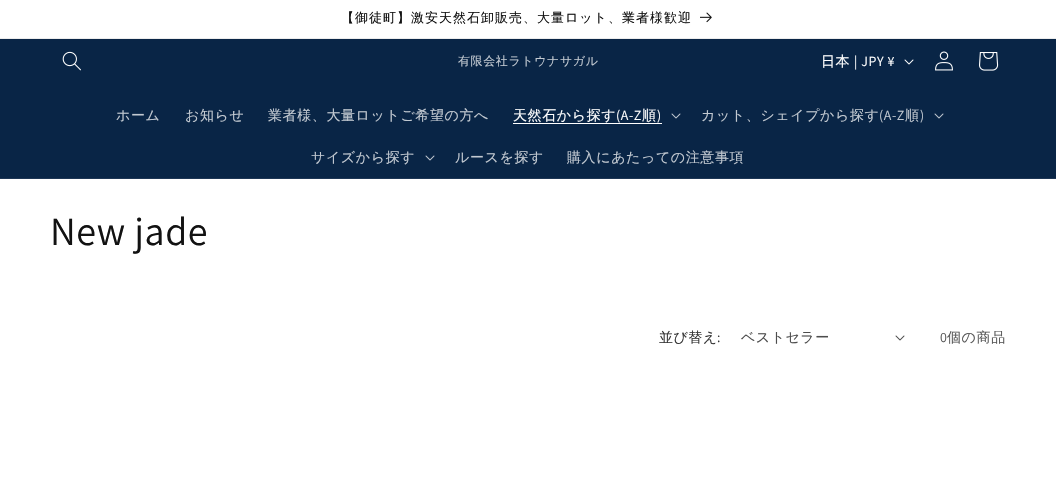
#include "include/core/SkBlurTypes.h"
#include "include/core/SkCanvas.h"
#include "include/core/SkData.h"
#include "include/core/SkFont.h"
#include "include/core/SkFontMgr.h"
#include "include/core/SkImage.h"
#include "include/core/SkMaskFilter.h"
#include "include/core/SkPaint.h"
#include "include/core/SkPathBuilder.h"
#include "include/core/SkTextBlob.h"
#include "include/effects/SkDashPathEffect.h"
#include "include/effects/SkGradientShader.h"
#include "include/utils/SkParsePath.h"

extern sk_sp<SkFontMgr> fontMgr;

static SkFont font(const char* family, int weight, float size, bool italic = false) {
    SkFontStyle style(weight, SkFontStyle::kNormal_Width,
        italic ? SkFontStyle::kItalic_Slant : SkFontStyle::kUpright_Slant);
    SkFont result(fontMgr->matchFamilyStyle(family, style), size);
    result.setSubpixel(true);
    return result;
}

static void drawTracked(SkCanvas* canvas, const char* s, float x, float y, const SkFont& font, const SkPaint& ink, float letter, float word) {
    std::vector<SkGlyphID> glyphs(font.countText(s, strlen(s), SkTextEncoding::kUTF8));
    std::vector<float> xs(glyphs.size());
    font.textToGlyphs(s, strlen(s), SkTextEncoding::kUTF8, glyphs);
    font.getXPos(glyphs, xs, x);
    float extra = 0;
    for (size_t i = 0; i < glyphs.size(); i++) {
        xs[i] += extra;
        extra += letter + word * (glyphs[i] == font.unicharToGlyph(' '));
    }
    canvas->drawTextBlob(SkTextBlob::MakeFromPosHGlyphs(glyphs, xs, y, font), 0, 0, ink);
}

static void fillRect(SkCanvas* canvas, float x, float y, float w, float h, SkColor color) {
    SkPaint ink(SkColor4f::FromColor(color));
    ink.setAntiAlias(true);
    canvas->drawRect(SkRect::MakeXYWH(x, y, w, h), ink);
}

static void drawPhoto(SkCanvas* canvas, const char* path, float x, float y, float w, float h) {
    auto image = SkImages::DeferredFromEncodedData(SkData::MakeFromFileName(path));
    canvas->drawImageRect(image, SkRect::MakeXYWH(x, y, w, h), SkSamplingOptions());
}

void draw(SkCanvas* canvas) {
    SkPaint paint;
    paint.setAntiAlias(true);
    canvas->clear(0xFFFFFFFF);
    fillRect(canvas, 0, 38, 1056, 1, 0xFFECECEC);
    SkFont font1 = font("WenQuanYi Zen Hei", 500, 13);
    paint.setColor(0xFF121212);
    drawTracked(canvas, "【御徒町】激安天然石卸販売、大量ロット、業者様歓迎", 341, 22, font1, paint, 1, 0);
    drawPhoto(canvas, "assets/img1.png", 700, 12, 12, 11);
    fillRect(canvas, 0, 39, 1056, 139, 0xFF092546);
    fillRect(canvas, 0, 178, 1056, 1, 0xFF1D3655);
    drawPhoto(canvas, "assets/img2.png", 62, 51, 19, 20);
    SkFont font2 = font("WenQuanYi Zen Hei", 500, 12);
    paint.setColor(0xFFC2C9D1);
    drawTracked(canvas, "有限会社ラトウナサガル", 458, 65, font2, paint, 0.6f, 0);
    SkFont font3 = font("WenQuanYi Zen Hei", 500, 14);
    paint.setColor(0xFFFFFFFF);
    drawTracked(canvas, "日本", 821, 66, font3, paint, 0.6f, 0);
    SkFont font4 = font("Assistant", 400, 14);
    drawTracked(canvas, "| JPY ¥", 854, 66, font4, paint, 0.6f, 0);
    drawPhoto(canvas, "assets/img3.png", 904, 59, 10, 6);
    drawPhoto(canvas, "assets/img4.png", 935, 51, 18, 20);
    drawPhoto(canvas, "assets/img5.png", 979, 52, 20, 19);
    paint.setColor(0xFFC2C9D1);
    drawTracked(canvas, "ホーム", 116, 120, font3, paint, 0.6f, 0);
    drawTracked(canvas, "お知らせ", 185, 120, font3, paint, 0.6f, 0);
    drawTracked(canvas, "業者様、大量ロットご希望の方へ", 268, 120, font3, paint, 0.6f, 0);
    paint.setColor(0xFFFFFFFF);
    drawTracked(canvas, "天然石から探す", 513, 120, font3, paint, 0.6f, 0);
    drawTracked(canvas, "(A-Z", 616, 120, font4, paint, 0.6f, 0);
    fillRect(canvas, 513, 123, 149, 1, 0xFFFFFFFF);
    drawTracked(canvas, "順", 642, 120, font3, paint, 0.6f, 0);
    drawTracked(canvas, ")", 657, 120, font4, paint, 0.6f, 0);
    drawPhoto(canvas, "assets/img6.png", 671, 113, 10, 6);
    paint.setColor(0xFFC2C9D1);
    drawTracked(canvas, "カット、シェイプから探す", 701, 120, font3, paint, 0.6f, 0);
    drawTracked(canvas, "(A-Z", 879, 120, font4, paint, 0.6f, 0);
    drawTracked(canvas, "順", 905, 120, font3, paint, 0.6f, 0);
    drawTracked(canvas, ")", 920, 120, font4, paint, 0.6f, 0);
    drawPhoto(canvas, "assets/img6.png", 934, 113, 10, 6);
    drawTracked(canvas, "サイズから探す", 311, 162, font3, paint, 0.6f, 0);
    drawPhoto(canvas, "assets/img6.png", 425, 155, 10, 6);
    drawTracked(canvas, "ルースを探す", 455, 162, font3, paint, 0.6f, 0);
    drawTracked(canvas, "購入にあたっての注意事項", 567, 162, font3, paint, 0.6f, 0);
    SkFont font5 = font("Assistant", 400, 40);
    paint.setColor(0xFF121212);
    drawTracked(canvas, "New jade", 50, 245, font5, paint, 0.6f, 0);
    paint.setColor(0xFF363636);
    drawTracked(canvas, "並び替え", 659, 342, font3, paint, 0.5f, 0);
    drawTracked(canvas, ":", 717, 342, font4, paint, 0.5f, 0);
    paint.setColor(0xFF4D4D4D);
    drawTracked(canvas, "ベストセラー", 741, 342, font3, paint, 0.5f, 0);
    drawPhoto(canvas, "assets/img7.png", 895, 335, 10, 6);
    paint.setColor(0xFF595959);
    drawTracked(canvas, "0", 940, 342, font4, paint, 0.6f, 0);
    drawTracked(canvas, "個の商品", 947, 342, font3, paint, 0.6f, 0);
}
